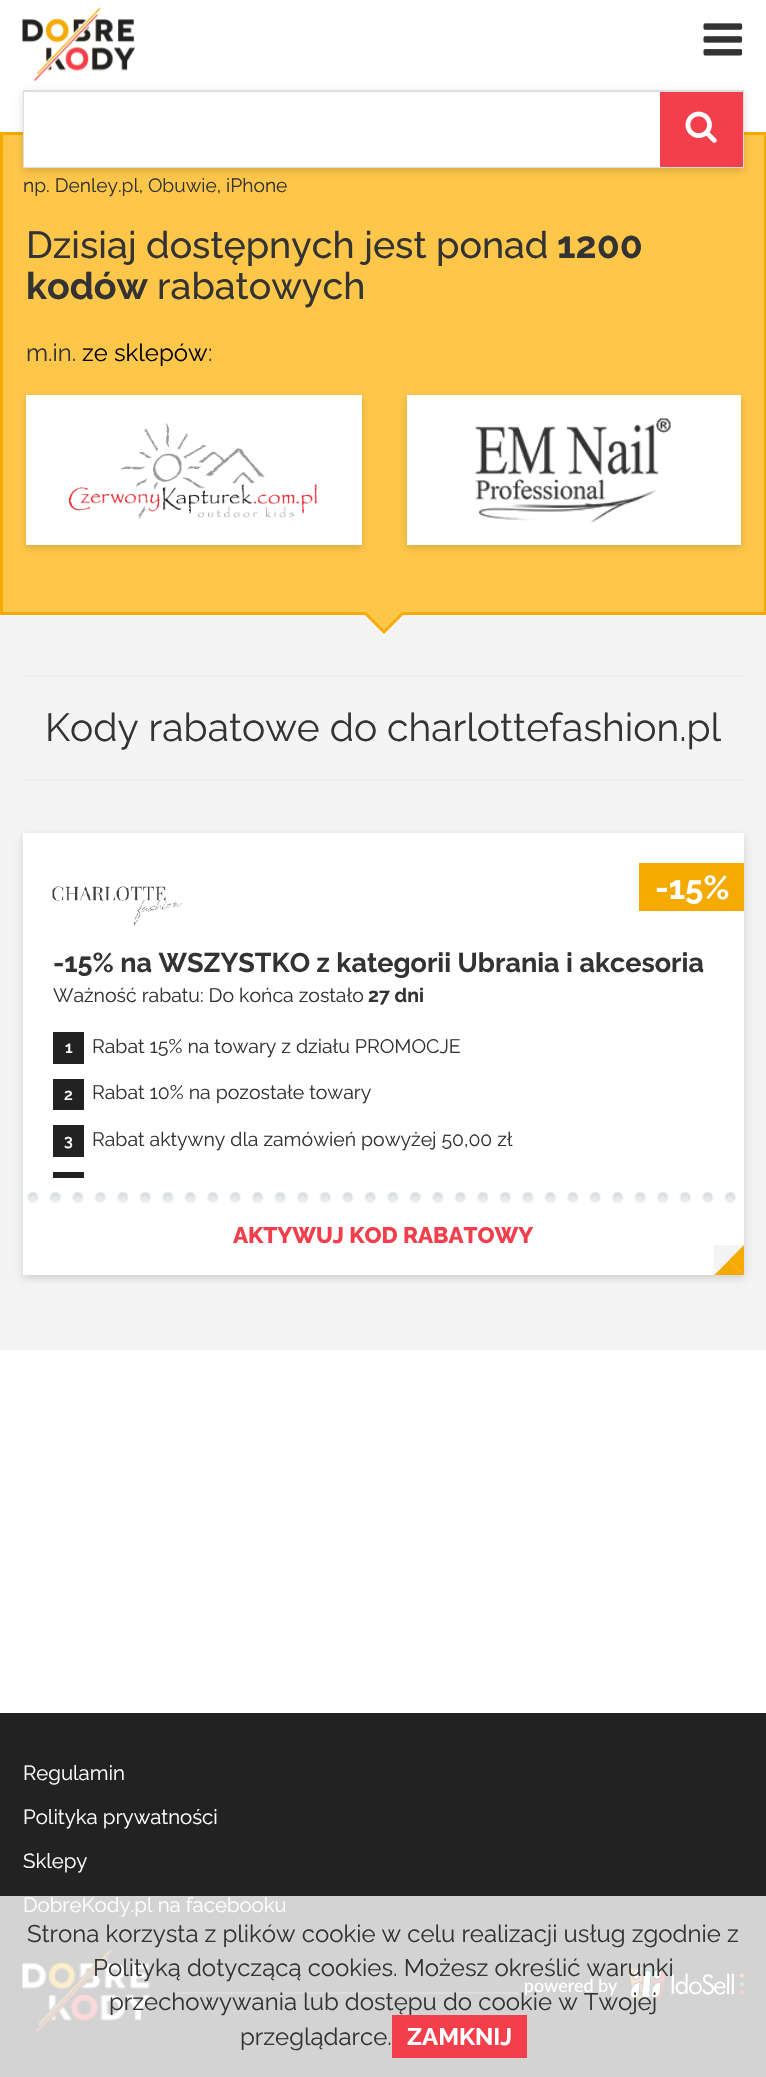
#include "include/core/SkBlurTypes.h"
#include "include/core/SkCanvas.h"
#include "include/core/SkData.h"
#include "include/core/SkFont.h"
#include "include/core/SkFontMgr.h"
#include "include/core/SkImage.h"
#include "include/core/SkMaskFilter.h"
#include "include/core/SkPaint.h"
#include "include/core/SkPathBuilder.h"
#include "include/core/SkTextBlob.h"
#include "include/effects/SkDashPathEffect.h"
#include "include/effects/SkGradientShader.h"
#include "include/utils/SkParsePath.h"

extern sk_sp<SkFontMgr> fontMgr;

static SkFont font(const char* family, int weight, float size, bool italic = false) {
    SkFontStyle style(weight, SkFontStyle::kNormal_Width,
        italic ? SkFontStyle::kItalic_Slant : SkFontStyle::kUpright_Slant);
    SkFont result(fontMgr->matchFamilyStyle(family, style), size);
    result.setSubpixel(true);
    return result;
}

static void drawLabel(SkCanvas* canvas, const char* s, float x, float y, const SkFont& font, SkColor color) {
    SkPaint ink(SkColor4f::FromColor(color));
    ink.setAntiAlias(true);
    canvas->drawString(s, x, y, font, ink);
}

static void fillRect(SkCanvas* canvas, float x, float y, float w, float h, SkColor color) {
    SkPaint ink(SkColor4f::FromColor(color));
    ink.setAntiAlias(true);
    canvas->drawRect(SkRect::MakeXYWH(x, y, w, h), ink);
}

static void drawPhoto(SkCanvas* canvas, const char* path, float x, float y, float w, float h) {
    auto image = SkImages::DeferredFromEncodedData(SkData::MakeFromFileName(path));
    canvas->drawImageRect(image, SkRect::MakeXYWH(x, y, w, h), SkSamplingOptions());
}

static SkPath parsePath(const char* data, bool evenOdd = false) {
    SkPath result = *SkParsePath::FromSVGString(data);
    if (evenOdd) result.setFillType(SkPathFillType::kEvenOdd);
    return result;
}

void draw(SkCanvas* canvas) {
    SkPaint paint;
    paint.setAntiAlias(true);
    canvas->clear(0xFFFFFFFF);
    paint.setColor(0xFFFFC74A);
    canvas->drawRect(SkRect::MakeXYWH(1.5f, 133.5f, 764, 480), paint);
    paint.setStroke(true);
    paint.setStrokeWidth(3);
    paint.setColor(0xFFF4AA00);
    canvas->drawRect(SkRect::MakeXYWH(1.5f, 133.5f, 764, 480), paint);
    paint.setStroke(false);
    paint.setColor(0x26000000);
    paint.setMaskFilter(SkMaskFilter::MakeBlur(kNormal_SkBlurStyle, 4));
    canvas->drawRect(SkRect::MakeXYWH(23, 93, 721, 78), paint);
    paint.setMaskFilter(nullptr);
    drawPhoto(canvas, "assets/img1.png", 22, 7, 113, 74);
    drawPhoto(canvas, "assets/img2.png", 703, 23, 40, 33);
    paint.setStroke(true);
    paint.setStrokeWidth(2);
    paint.setColor(0xFFDDDDDD);
    canvas->drawRect(SkRect::MakeXYWH(24, 91, 719, 76), paint);
    fillRect(canvas, 24, 92, 636, 75, 0xFFFFFFFF);
    fillRect(canvas, 660, 92, 83, 75, 0xFFF33F4C);
    drawPhoto(canvas, "assets/img3.png", 685, 111, 32, 32);
    SkFont font1 = font("Raleway", 400, 19.25f);
    drawLabel(canvas, "np. Denley.pl, Obuwie, iPhone", 23, 192, font1, 0xFF333333);
    SkFont font2 = font("Raleway", 500, 37.5f);
    drawLabel(canvas, "Dzisiaj dostępnych jest ponad", 26, 258, font2, 0xFF333333);
    SkFont font3 = font("Raleway", 700, 37.5f);
    drawLabel(canvas, "1200", 557, 258, font3, 0xFF333333);
    drawLabel(canvas, "kodów", 26, 299, font3, 0xFF333333);
    drawLabel(canvas, "rabatowych", 157, 299, font2, 0xFF333333);
    SkFont font4 = font("Raleway", 400, 24);
    drawLabel(canvas, "m.in.", 26, 361, font4, 0xFF333333);
    drawLabel(canvas, "ze sklepów", 82, 361, font4, 0xFF000000);
    drawLabel(canvas, ":", 208, 361, font4, 0xFF333333);
    paint.setStroke(false);
    paint.setColor(0x26000000);
    paint.setMaskFilter(SkMaskFilter::MakeBlur(kNormal_SkBlurStyle, 4));
    canvas->drawRect(SkRect::MakeXYWH(26, 398, 336, 150), paint);
    paint.setMaskFilter(nullptr);
    fillRect(canvas, 26, 395, 336, 150, 0xFFFFFFFF);
    drawPhoto(canvas, "assets/img4.png", 68, 423, 250, 96);
    paint.setMaskFilter(SkMaskFilter::MakeBlur(kNormal_SkBlurStyle, 4));
    canvas->drawRect(SkRect::MakeXYWH(407, 398, 334, 150), paint);
    paint.setMaskFilter(nullptr);
    fillRect(canvas, 407, 395, 334, 150, 0xFFFFFFFF);
    drawPhoto(canvas, "assets/img5.png", 475, 418, 196, 105);
    fillRect(canvas, 0, 615, 766, 735, 0xFFF4F4F4);
    paint.setColor(0xFFF4AA00);
    canvas->drawPath(parsePath("M362 612H406L384 634Z"), paint);
    paint.setColor(0xFFFFC74A);
    canvas->drawPath(parsePath("M366 612H402L384 630Z"), paint);
    fillRect(canvas, 23, 675, 721, 2, 0xFFEEEEEE);
    SkFont font5 = font("Raleway", 400, 39);
    drawLabel(canvas, "Kody rabatowe do charlottefashion.pl", 45, 741, font5, 0xFF333333);
    fillRect(canvas, 23, 779, 721, 2, 0xFFEEEEEE);
    paint.setColor(0x26000000);
    paint.setMaskFilter(SkMaskFilter::MakeBlur(kNormal_SkBlurStyle, 4));
    canvas->drawRect(SkRect::MakeXYWH(23, 836, 721, 442), paint);
    paint.setMaskFilter(nullptr);
    fillRect(canvas, 23, 833, 721, 442, 0xFFFFFFFF);
    drawPhoto(canvas, "assets/img6.png", 52, 886, 130, 40);
    fillRect(canvas, 639, 863, 105, 48, 0xFFF4AA00);
    SkFont font6 = font("Raleway", 700, 33);
    drawLabel(canvas, "-15%", 655, 899, font6, 0xFFFFFFFF);
    SkFont font7 = font("Raleway", 700, 27);
    drawLabel(canvas, "-15% na WSZYSTKO z kategorii Ubrania i akcesoria", 53, 972, font7, 0xFF333333);
    SkFont font8 = font("Raleway", 400, 19.5f);
    drawLabel(canvas, "Ważność rabatu: Do końca zostało", 53, 1002, font8, 0xFF333333);
    SkFont font9 = font("Raleway", 700, 19.5f);
    drawLabel(canvas, "27 dni", 368, 1002, font9, 0xFF333333);
    fillRect(canvas, 53, 1032, 31, 32, 0xFF222222);
    SkFont font10 = font("Raleway", 600, 16);
    drawLabel(canvas, "1", 65, 1053, font10, 0xFFFFFFFF);
    drawLabel(canvas, "Rabat 15% na towary z działu PROMOCJE", 92, 1053, font8, 0xFF333333);
    fillRect(canvas, 53, 1079, 31, 31, 0xFF222222);
    drawLabel(canvas, "2", 64, 1100, font10, 0xFFFFFFFF);
    drawLabel(canvas, "Rabat 10% na pozostałe towary", 92, 1099, font8, 0xFF333333);
    fillRect(canvas, 53, 1125, 31, 32, 0xFF222222);
    drawLabel(canvas, "3", 64, 1146, font10, 0xFFFFFFFF);
    drawLabel(canvas, "Rabat aktywny dla zamówień powyżej 50,00 zł", 92, 1146, font8, 0xFF333333);
    fillRect(canvas, 53, 1172, 31, 6, 0xFF222222);
    drawPhoto(canvas, "assets/img7.png", 27, 1191, 710, 12);
    SkFont font11 = font("Raleway", 800, 22.5f);
    drawLabel(canvas, "AKTYWUJ KOD RABATOWY", 233, 1243, font11, 0xFFF33F4C);
    paint.setColor(0xFFF4F4F4);
    canvas->drawPath(parsePath("M714 1245H744L729 1260Z"), paint);
    paint.setColor(0xFFF4AA00);
    canvas->drawPath(parsePath("M744 1245V1275L729 1260Z"), paint);
    canvas->drawPath(parsePath("M744 1275H714L729 1260Z"), paint);
    paint.setColor(0xFFF4F4F4);
    canvas->drawPath(parsePath("M714 1275V1245L729 1260Z"), paint);
    fillRect(canvas, 0, 1713, 766, 183, 0xFF222222);
    fillRect(canvas, 0, 1896, 766, 181, 0xFFD3D3D3);
    SkFont font12 = font("Raleway", 400, 20.4f);
    drawLabel(canvas, "Regulamin", 23, 1780, font12, 0xFFFFFFFF);
    drawLabel(canvas, "Polityka prywatności", 23, 1824, font12, 0xFFFFFFFF);
    drawLabel(canvas, "Sklepy", 23, 1868, font12, 0xFFFFFFFF);
    drawLabel(canvas, "DobreKody.pl na facebooku", 23, 1912, font12, 0xFFFFFFFF);
    drawPhoto(canvas, "assets/img8.png", 22, 1950, 128, 83);
    fillRect(canvas, 173, 1992, 346, 2, 0xFFDCDCDC);
    drawPhoto(canvas, "assets/img9.png", 525, 1967, 219, 32);
    drawLabel(canvas, "Strona korzysta z plików cookie w celu realizacji usług zgodnie z", 27, 1942, font4, 0xFF333333);
    drawLabel(canvas, "Polityką dotyczącą cookies. Możesz określić warunki", 93, 1976, font4, 0xFF333333);
    drawLabel(canvas, "przechowywania lub dostępu do cookie w Twojej", 109, 2010, font4, 0xFF333333);
    drawLabel(canvas, "przeglądarce.", 240, 2045, font4, 0xFF333333);
    fillRect(canvas, 392, 2015, 135, 43, 0xFFF33F4C);
    SkFont font13 = font("Raleway", 700, 24);
    drawLabel(canvas, "ZAMKNIJ", 407, 2045, font13, 0xFFFFFFFF);
}
